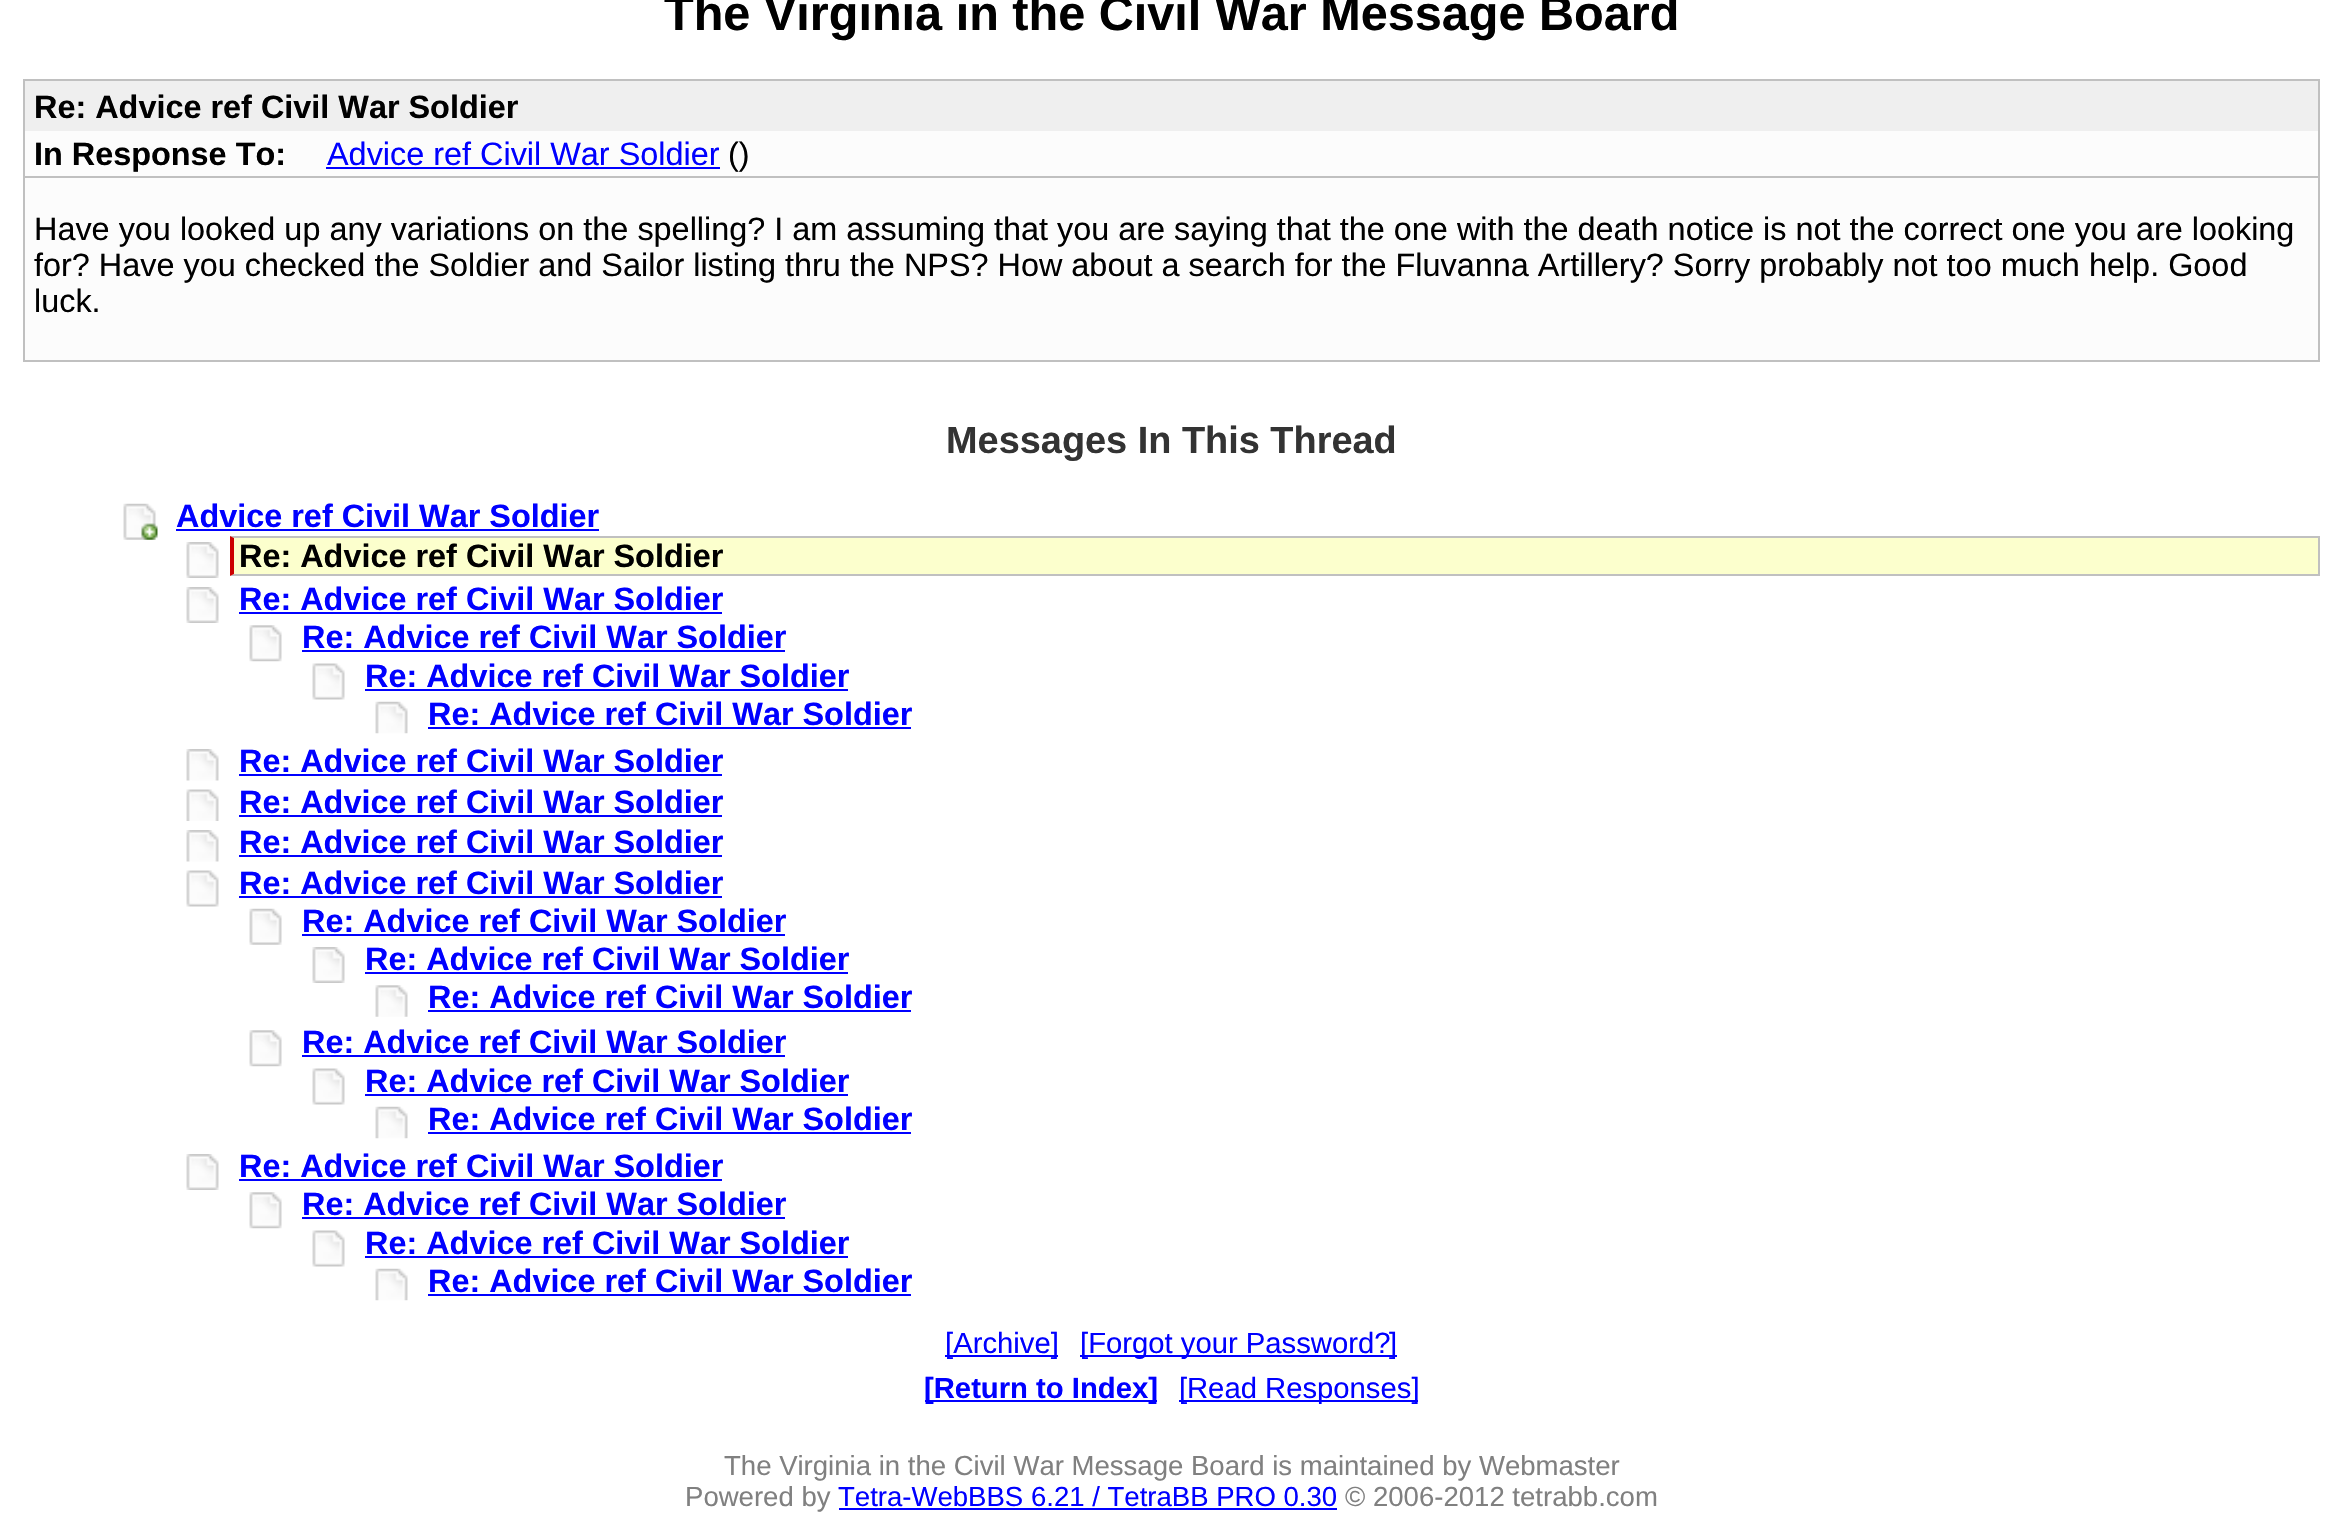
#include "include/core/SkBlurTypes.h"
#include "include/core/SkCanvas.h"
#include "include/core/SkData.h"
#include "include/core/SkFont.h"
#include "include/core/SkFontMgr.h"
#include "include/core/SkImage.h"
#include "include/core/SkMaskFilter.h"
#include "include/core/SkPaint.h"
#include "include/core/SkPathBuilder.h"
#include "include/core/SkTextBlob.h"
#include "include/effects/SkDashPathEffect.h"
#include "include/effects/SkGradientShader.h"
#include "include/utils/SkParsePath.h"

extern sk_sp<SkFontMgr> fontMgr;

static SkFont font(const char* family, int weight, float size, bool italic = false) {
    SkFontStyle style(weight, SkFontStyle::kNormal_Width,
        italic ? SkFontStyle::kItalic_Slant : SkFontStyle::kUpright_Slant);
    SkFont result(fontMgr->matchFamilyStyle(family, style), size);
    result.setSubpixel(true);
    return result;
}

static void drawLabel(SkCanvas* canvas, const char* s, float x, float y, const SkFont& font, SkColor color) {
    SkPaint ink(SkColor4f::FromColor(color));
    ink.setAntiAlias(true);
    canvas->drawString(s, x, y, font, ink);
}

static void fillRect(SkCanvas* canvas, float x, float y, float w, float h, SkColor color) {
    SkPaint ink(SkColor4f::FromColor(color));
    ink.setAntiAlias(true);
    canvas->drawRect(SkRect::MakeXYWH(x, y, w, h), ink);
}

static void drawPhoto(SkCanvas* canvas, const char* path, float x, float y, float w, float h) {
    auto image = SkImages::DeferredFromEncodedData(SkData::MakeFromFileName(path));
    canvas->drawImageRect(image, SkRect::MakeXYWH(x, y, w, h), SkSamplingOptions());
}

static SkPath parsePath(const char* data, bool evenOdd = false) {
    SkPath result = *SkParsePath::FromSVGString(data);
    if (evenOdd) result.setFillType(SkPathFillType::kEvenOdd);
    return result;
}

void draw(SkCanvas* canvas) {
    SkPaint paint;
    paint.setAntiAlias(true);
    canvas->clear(0xFFFFFFFF);
    SkFont font1 = font("Liberation Sans", 700, 48.6f);
    drawLabel(canvas, "The Virginia in the Civil War Message Board", 664, 30, font1, 0xFF000000);
    fillRect(canvas, 25, 131, 2293, 229, 0xFFFCFCFC);
    paint.setStroke(true);
    paint.setStrokeWidth(2);
    paint.setColor(0xFFC0C0C0);
    canvas->drawRect(SkRect::MakeXYWH(24, 80, 2295, 281), paint);
    fillRect(canvas, 25, 81, 2293, 50, 0xFFEFEFEF);
    SkFont font2 = font("Liberation Sans", 700, 32.4f);
    drawLabel(canvas, "Re: Advice ref Civil War Soldier", 34, 118, font2, 0xFF000000);
    drawLabel(canvas, "In Response To:", 34, 165, font2, 0xFF000000);
    SkFont font3 = font("Liberation Sans", 400, 32.4f);
    drawLabel(canvas, "Advice ref Civil War Soldier", 327, 165, font3, 0xFF0000FF);
    fillRect(canvas, 326, 167, 394, 2, 0xFF0000FF);
    drawLabel(canvas, "()", 728, 165, font3, 0xFF000000);
    fillRect(canvas, 25, 176, 2293, 2, 0xFFC0C0C0);
    drawLabel(canvas, "Have you looked up any variations on the spelling? I am assuming that you are saying that the one with the death notice is not the correct one you are looking", 34, 240, font3, 0xFF000000);
    drawLabel(canvas, "for? Have you checked the Soldier and Sailor listing thru the NPS? How about a search for the Fluvanna Artillery? Sorry probably not too much help. Good", 34, 276, font3, 0xFF000000);
    drawLabel(canvas, "luck.", 34, 312, font3, 0xFF000000);
    SkFont font4 = font("Liberation Sans", 700, 37.9f);
    drawLabel(canvas, "Messages In This Thread", 946, 453, font4, 0xFF333333);
    drawPhoto(canvas, "assets/img1.png", 123, 503, 35, 37);
    drawLabel(canvas, "Advice ref Civil War Soldier", 176, 527, font2, 0xFF0000FF);
    fillRect(canvas, 176, 529, 423, 2, 0xFF0000FF);
    drawPhoto(canvas, "assets/img2.png", 186, 542, 33, 36);
    fillRect(canvas, 234, 538, 2084, 36, 0xFFFCFFCD);
    paint.setStroke(false);
    canvas->drawPath(parsePath("M230 536H2320L2318 538H234Z"), paint);
    fillRect(canvas, 2318, 536, 2, 40, 0xFFC0C0C0);
    canvas->drawPath(parsePath("M2320 576H230L234 574H2318Z"), paint);
    paint.setColor(0xFFCC0000);
    canvas->drawPath(parsePath("M230 576V536L234 538V574Z"), paint);
    drawLabel(canvas, "Re: Advice ref Civil War Soldier", 239, 567, font2, 0xFF000000);
    drawPhoto(canvas, "assets/img2.png", 186, 587, 33, 36);
    drawLabel(canvas, "Re: Advice ref Civil War Soldier", 239, 610, font2, 0xFF0000FF);
    fillRect(canvas, 239, 612, 483, 2, 0xFF0000FF);
    drawPhoto(canvas, "assets/img3.png", 249, 625, 33, 37);
    drawLabel(canvas, "Re: Advice ref Civil War Soldier", 302, 648, font2, 0xFF0000FF);
    fillRect(canvas, 302, 650, 483, 2, 0xFF0000FF);
    drawPhoto(canvas, "assets/img4.png", 312, 663, 33, 37);
    drawLabel(canvas, "Re: Advice ref Civil War Soldier", 365, 687, font2, 0xFF0000FF);
    fillRect(canvas, 365, 689, 483, 2, 0xFF0000FF);
    drawPhoto(canvas, "assets/img5.png", 375, 701, 33, 33);
    drawLabel(canvas, "Re: Advice ref Civil War Soldier", 428, 725, font2, 0xFF0000FF);
    fillRect(canvas, 428, 727, 483, 2, 0xFF0000FF);
    drawPhoto(canvas, "assets/img6.png", 186, 749, 33, 32);
    drawLabel(canvas, "Re: Advice ref Civil War Soldier", 239, 772, font2, 0xFF0000FF);
    fillRect(canvas, 239, 774, 483, 2, 0xFF0000FF);
    drawPhoto(canvas, "assets/img7.png", 186, 789, 33, 32);
    drawLabel(canvas, "Re: Advice ref Civil War Soldier", 239, 813, font2, 0xFF0000FF);
    fillRect(canvas, 239, 815, 483, 2, 0xFF0000FF);
    drawPhoto(canvas, "assets/img6.png", 186, 830, 33, 32);
    drawLabel(canvas, "Re: Advice ref Civil War Soldier", 239, 853, font2, 0xFF0000FF);
    fillRect(canvas, 239, 855, 483, 2, 0xFF0000FF);
    drawPhoto(canvas, "assets/img8.png", 186, 870, 33, 37);
    drawLabel(canvas, "Re: Advice ref Civil War Soldier", 239, 894, font2, 0xFF0000FF);
    fillRect(canvas, 239, 896, 483, 2, 0xFF0000FF);
    drawPhoto(canvas, "assets/img9.png", 249, 908, 33, 37);
    drawLabel(canvas, "Re: Advice ref Civil War Soldier", 302, 932, font2, 0xFF0000FF);
    fillRect(canvas, 302, 934, 483, 2, 0xFF0000FF);
    drawPhoto(canvas, "assets/img10.png", 312, 947, 33, 36);
    drawLabel(canvas, "Re: Advice ref Civil War Soldier", 365, 970, font2, 0xFF0000FF);
    fillRect(canvas, 365, 972, 483, 2, 0xFF0000FF);
    drawPhoto(canvas, "assets/img11.png", 375, 985, 33, 32);
    drawLabel(canvas, "Re: Advice ref Civil War Soldier", 428, 1008, font2, 0xFF0000FF);
    fillRect(canvas, 428, 1010, 483, 2, 0xFF0000FF);
    drawPhoto(canvas, "assets/img12.png", 249, 1030, 33, 37);
    drawLabel(canvas, "Re: Advice ref Civil War Soldier", 302, 1053, font2, 0xFF0000FF);
    fillRect(canvas, 302, 1055, 483, 2, 0xFF0000FF);
    drawPhoto(canvas, "assets/img4.png", 312, 1068, 33, 37);
    drawLabel(canvas, "Re: Advice ref Civil War Soldier", 365, 1092, font2, 0xFF0000FF);
    fillRect(canvas, 365, 1094, 483, 2, 0xFF0000FF);
    drawPhoto(canvas, "assets/img5.png", 375, 1106, 33, 33);
    drawLabel(canvas, "Re: Advice ref Civil War Soldier", 428, 1130, font2, 0xFF0000FF);
    fillRect(canvas, 428, 1132, 483, 2, 0xFF0000FF);
    drawPhoto(canvas, "assets/img2.png", 186, 1154, 33, 36);
    drawLabel(canvas, "Re: Advice ref Civil War Soldier", 239, 1177, font2, 0xFF0000FF);
    fillRect(canvas, 239, 1179, 483, 2, 0xFF0000FF);
    drawPhoto(canvas, "assets/img12.png", 249, 1192, 33, 37);
    drawLabel(canvas, "Re: Advice ref Civil War Soldier", 302, 1215, font2, 0xFF0000FF);
    fillRect(canvas, 302, 1217, 483, 2, 0xFF0000FF);
    drawPhoto(canvas, "assets/img4.png", 312, 1230, 33, 37);
    drawLabel(canvas, "Re: Advice ref Civil War Soldier", 365, 1254, font2, 0xFF0000FF);
    fillRect(canvas, 365, 1256, 483, 2, 0xFF0000FF);
    drawPhoto(canvas, "assets/img5.png", 375, 1268, 33, 33);
    drawLabel(canvas, "Re: Advice ref Civil War Soldier", 428, 1292, font2, 0xFF0000FF);
    fillRect(canvas, 428, 1294, 483, 2, 0xFF0000FF);
    fillRect(canvas, 945, 1355, 113, 2, 0xFF0000FF);
    SkFont font5 = font("Liberation Sans", 400, 29.25f);
    drawLabel(canvas, "[Archive]", 945, 1353, font5, 0xFF0000FF);
    fillRect(canvas, 1080, 1355, 308, 2, 0xFF0000FF);
    drawLabel(canvas, "[Forgot your Password?", 1080, 1353, font5, 0xFF0000FF);
    fillRect(canvas, 1388, 1355, 9, 2, 0xFF0000FF);
    drawLabel(canvas, "]", 1389, 1353, font5, 0xFF0000FF);
    fillRect(canvas, 925, 1400, 232, 2, 0xFF0000FF);
    SkFont font6 = font("Liberation Sans", 700, 29.25f);
    drawLabel(canvas, "[Return to Index]", 924, 1398, font6, 0xFF0000FF);
    fillRect(canvas, 1179, 1400, 7, 2, 0xFF0000FF);
    drawLabel(canvas, "[", 1179, 1398, font5, 0xFF0000FF);
    fillRect(canvas, 1186, 1400, 232, 2, 0xFF0000FF);
    drawLabel(canvas, "Read Responses]", 1187, 1398, font5, 0xFF0000FF);
    SkFont font7 = font("Liberation Sans", 400, 27.55f);
    drawLabel(canvas, "The Virginia in the Civil War Message Board is maintained by Webmaster", 724, 1475, font7, 0xFF808080);
    drawLabel(canvas, "Powered by", 685, 1506, font7, 0xFF808080);
    drawLabel(canvas, "Tetra-WebBBS 6.21 / TetraBB PRO 0.30", 838, 1506, font7, 0xFF0000FF);
    fillRect(canvas, 839, 1508, 498, 2, 0xFF0000FF);
    drawLabel(canvas, "© 2006-2012 tetrabb.com", 1345, 1506, font7, 0xFF808080);
}
